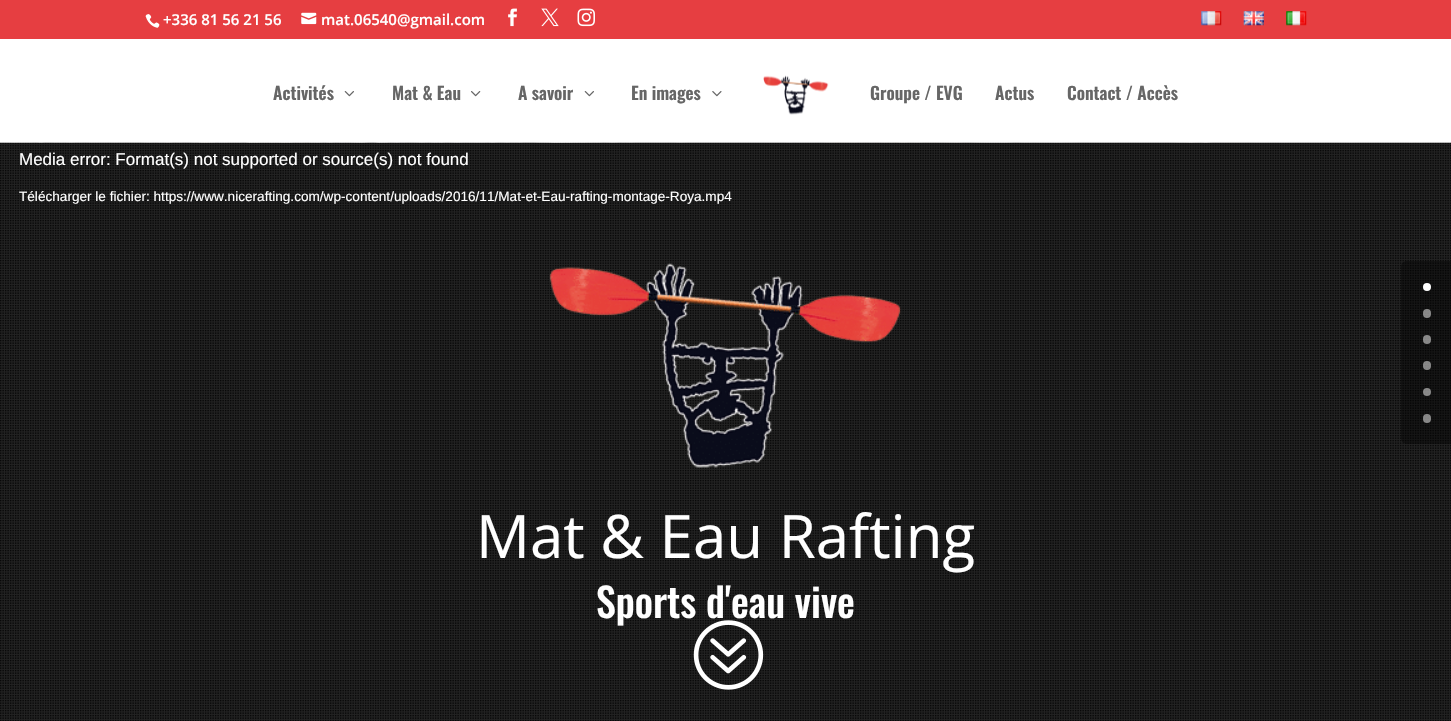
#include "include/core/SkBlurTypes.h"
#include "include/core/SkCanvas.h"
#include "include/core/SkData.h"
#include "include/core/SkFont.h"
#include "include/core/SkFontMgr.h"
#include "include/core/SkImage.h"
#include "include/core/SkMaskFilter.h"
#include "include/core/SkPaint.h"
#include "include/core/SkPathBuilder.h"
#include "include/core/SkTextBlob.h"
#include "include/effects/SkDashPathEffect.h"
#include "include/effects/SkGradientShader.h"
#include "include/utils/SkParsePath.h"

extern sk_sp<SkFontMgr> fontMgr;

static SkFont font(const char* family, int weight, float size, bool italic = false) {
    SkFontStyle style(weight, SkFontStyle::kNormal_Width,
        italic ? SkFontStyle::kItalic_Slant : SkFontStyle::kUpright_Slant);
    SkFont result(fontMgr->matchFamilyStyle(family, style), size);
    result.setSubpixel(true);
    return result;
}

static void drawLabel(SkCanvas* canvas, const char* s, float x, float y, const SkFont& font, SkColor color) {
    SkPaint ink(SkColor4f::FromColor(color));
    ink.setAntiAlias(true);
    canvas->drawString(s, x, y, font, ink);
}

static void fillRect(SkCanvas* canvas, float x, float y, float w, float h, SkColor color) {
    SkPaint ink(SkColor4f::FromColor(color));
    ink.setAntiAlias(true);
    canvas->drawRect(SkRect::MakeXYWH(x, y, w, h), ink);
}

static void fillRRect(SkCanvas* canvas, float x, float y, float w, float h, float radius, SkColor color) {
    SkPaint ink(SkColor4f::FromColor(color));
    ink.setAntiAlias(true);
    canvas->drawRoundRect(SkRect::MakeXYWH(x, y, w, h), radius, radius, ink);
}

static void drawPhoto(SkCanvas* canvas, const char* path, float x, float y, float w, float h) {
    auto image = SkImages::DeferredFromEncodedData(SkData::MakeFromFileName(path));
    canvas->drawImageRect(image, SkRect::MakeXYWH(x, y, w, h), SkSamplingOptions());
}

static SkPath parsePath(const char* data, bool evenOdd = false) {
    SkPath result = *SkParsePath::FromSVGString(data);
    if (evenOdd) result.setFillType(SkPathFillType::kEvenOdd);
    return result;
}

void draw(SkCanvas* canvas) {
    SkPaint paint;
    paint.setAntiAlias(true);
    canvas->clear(0xFFFFFFFF);
    fillRect(canvas, 0, 0, 1451, 39, 0xFFE63E41);
    drawPhoto(canvas, "assets/img1.png", 145, 14, 15, 14);
    SkFont font1 = font("Open Sans", 600, 15);
    drawLabel(canvas, "+336 81 56 21 56", 163, 25, font1, 0xFFFFFFFF);
    drawPhoto(canvas, "assets/img2.png", 301, 12, 16, 13);
    drawLabel(canvas, "mat.06540@gmail.com", 321, 25, font1, 0xFFFFFFFF);
    drawPhoto(canvas, "assets/img3.png", 508, 8, 9, 19);
    drawPhoto(canvas, "assets/img4.png", 541, 8, 18, 19);
    drawPhoto(canvas, "assets/img5.png", 577, 8, 18, 19);
    drawPhoto(canvas, "assets/img6.png", 1201, 11, 21, 15);
    drawPhoto(canvas, "assets/img7.png", 1243, 11, 21, 15);
    drawPhoto(canvas, "assets/img8.png", 1286, 11, 21, 15);
    drawPhoto(canvas, "assets/img13.png", 0, 142, 1451, 1);
    fillRect(canvas, 0, 143, 1451, 578, 0xFF222222);
    drawPhoto(canvas, "assets/img14.png", 0, 142, 1451, 579);
    fillRect(canvas, 0, 142, 1451, 2, 0x1A000000);
    fillRect(canvas, 0, 142, 1451, 1, 0x80FFFFFF);
    SkFont font2 = font("Oswald", 600, 17.5f);
    drawLabel(canvas, "Activités", 273, 100, font2, 0xFF666666);
    drawPhoto(canvas, "assets/img9.png", 344, 91, 10, 6);
    drawLabel(canvas, "Mat & Eau", 392, 100, font2, 0xFF666666);
    drawPhoto(canvas, "assets/img10.png", 471, 91, 10, 6);
    drawLabel(canvas, "A savoir", 518, 100, font2, 0xFF666666);
    drawPhoto(canvas, "assets/img9.png", 584, 91, 10, 6);
    drawLabel(canvas, "En images", 631, 100, font2, 0xFF666666);
    drawPhoto(canvas, "assets/img11.png", 712, 91, 10, 6);
    drawPhoto(canvas, "assets/img12.png", 763, 75, 66, 40);
    drawLabel(canvas, "Groupe / EVG", 870, 100, font2, 0xFF666666);
    drawLabel(canvas, "Actus", 995, 100, font2, 0xFF666666);
    drawLabel(canvas, "Contact / Accès", 1067, 100, font2, 0xFF666666);
    SkFont font3 = font("Liberation Sans", 400, 17);
    drawLabel(canvas, "Media error: Format(s) not supported or source(s) not found", 19, 165, font3, 0xFFFFFFFF);
    SkFont font4 = font("Liberation Sans", 400, 13.6f);
    drawLabel(canvas, "Télécharger le fichier: https://www.nicerafting.com/wp-content/uploads/2016/11/Mat-et-Eau-rafting-montage-Roya.mp4", 19, 201, font4, 0xFFFFFFFF);
    drawPhoto(canvas, "assets/img15.png", 549, 263, 352, 205);
    SkFont font5 = font("Open Sans", 400, 60);
    drawLabel(canvas, "Mat & Eau Rafting", 476, 558, font5, 0xFFFFFFFF);
    SkFont font6 = font("Oswald", 500, 40);
    drawLabel(canvas, "Sports d'eau vive", 596, 618, font6, 0xFFFFFFFF);
    drawPhoto(canvas, "assets/img16.png", 693, 620, 71, 70);
    paint.setColor(0x66000000);
    canvas->drawPath(parsePath("M1407 261H1451V444H1407C1403.5 444 1401 441.5 1401 438V267C1401 263.5 1403.5 261 1407 261Z"), paint);
    paint.setColor(0xFFFFFFFF);
    canvas->drawCircle(1427, 287, 4, paint);
    fillRRect(canvas, 1423, 309, 8, 9, 4, 0x80FFFFFF);
    fillRRect(canvas, 1423, 335, 8, 9, 4, 0x80FFFFFF);
    fillRRect(canvas, 1423, 361, 8, 9, 4, 0x80FFFFFF);
    paint.setColor(0x80FFFFFF);
    canvas->drawCircle(1427, 392, 4, paint);
    fillRRect(canvas, 1423, 414, 8, 9, 4, 0x80FFFFFF);
}
